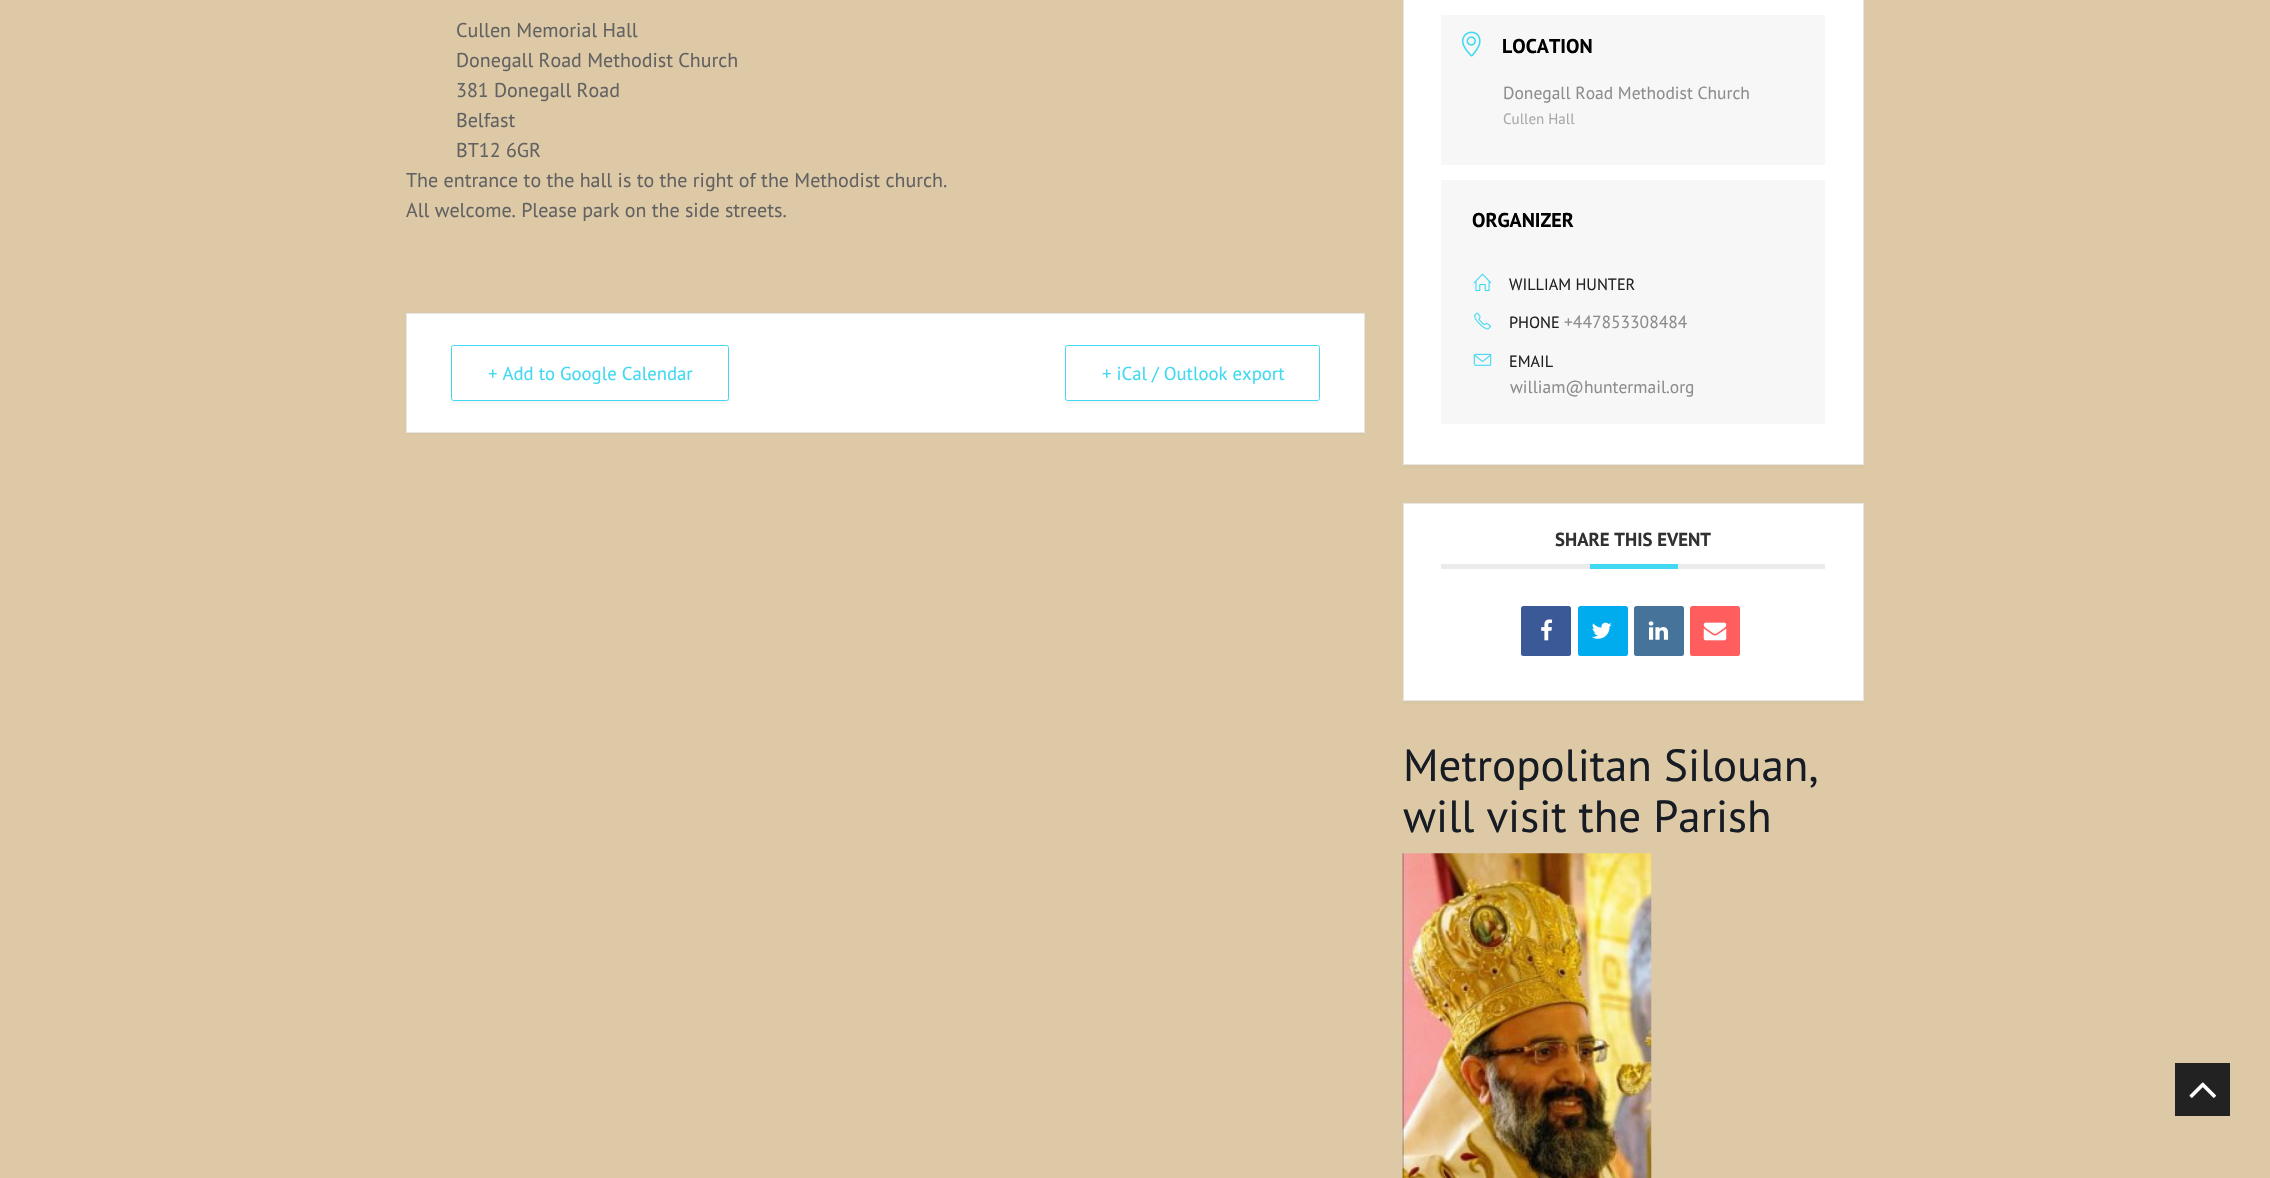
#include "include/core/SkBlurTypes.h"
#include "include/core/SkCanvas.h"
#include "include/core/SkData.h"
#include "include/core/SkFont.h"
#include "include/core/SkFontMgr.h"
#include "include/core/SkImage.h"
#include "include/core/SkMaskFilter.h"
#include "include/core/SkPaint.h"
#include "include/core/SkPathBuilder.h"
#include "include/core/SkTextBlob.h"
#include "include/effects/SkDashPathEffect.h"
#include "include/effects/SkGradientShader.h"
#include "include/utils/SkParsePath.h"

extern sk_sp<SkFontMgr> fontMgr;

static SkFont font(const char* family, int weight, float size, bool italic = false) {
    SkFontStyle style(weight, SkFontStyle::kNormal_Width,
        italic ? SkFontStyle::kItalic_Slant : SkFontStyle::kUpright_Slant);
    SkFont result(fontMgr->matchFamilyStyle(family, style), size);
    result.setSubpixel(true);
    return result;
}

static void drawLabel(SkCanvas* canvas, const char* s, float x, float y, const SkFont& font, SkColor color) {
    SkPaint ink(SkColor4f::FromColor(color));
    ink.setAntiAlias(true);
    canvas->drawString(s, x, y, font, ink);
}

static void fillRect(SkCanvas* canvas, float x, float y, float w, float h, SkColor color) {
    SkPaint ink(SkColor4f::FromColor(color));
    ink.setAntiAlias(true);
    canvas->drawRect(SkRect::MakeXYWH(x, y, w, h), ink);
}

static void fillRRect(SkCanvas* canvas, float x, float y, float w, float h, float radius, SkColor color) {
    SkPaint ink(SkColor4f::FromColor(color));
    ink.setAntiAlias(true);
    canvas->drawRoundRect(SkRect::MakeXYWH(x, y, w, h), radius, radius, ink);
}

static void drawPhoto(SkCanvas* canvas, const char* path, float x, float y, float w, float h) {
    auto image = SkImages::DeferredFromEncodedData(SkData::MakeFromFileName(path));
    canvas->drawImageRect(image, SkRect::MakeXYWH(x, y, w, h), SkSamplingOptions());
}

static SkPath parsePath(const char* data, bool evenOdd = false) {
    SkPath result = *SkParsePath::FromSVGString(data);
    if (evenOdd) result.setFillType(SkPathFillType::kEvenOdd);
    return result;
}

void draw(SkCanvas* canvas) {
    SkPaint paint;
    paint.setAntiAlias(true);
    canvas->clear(0xFFDDC9A6);
    SkFont font1 = font("PT Sans", 400, 20);
    drawLabel(canvas, "Cullen Memorial Hall", 456, 37, font1, 0xFF626262);
    drawLabel(canvas, "Donegall Road Methodist Church", 456, 67, font1, 0xFF626262);
    drawLabel(canvas, "381 Donegall Road", 456, 97, font1, 0xFF626262);
    drawLabel(canvas, "Belfast", 456, 127, font1, 0xFF626262);
    drawLabel(canvas, "BT12 6GR", 456, 157, font1, 0xFF626262);
    drawLabel(canvas, "The entrance to the hall is to the right of the Methodist church.", 406, 187, font1, 0xFF626262);
    drawLabel(canvas, "All welcome. Please park on the side streets.", 406, 217, font1, 0xFF626262);
    paint.setColor(0xFFD9C6A3);
    canvas->drawPath(parsePath("M406 315V435H1365V432H406Z"), paint);
    paint.setColor(0xFFFFFFFF);
    canvas->drawRect(SkRect::MakeXYWH(406.5f, 313.5f, 958, 119), paint);
    paint.setStroke(true);
    paint.setStrokeWidth(1);
    paint.setColor(0xFFE6E6E6);
    canvas->drawRect(SkRect::MakeXYWH(406.5f, 313.5f, 958, 119), paint);
    paint.setStroke(false);
    paint.setColor(0xFFF7F7F7);
    canvas->drawPath(parsePath("M451 349V402C451 403 452 404 454 404H726C728 404 729 403 729 402V349V399C729 400 728 401 726 401H454C452 401 451 400 451 399Z"), paint);
    paint.setStroke(true);
    paint.setColor(0xFF40D9F1);
    canvas->drawRoundRect(SkRect::MakeXYWH(451.5f, 345.5f, 277, 55), 2, 2, paint);
    SkFont font2 = font("PT Sans", 400, 18.75f);
    drawLabel(canvas, "+ Add to Google Calendar", 488, 380, font2, 0xFF40D9F1);
    paint.setStroke(false);
    paint.setColor(0xFFF7F7F7);
    canvas->drawPath(parsePath("M1065 399C1065 401 1065 403 1067 404H1318C1320 404 1320 401 1320 399C1320 400 1319 401 1318 401H1068C1066 401 1065 400 1065 399Z"), paint);
    paint.setStroke(true);
    paint.setColor(0xFF40D9F1);
    canvas->drawRoundRect(SkRect::MakeXYWH(1065.5f, 345.5f, 254, 55), 2, 2, paint);
    drawLabel(canvas, "+ iCal / Outlook export", 1102, 380, font2, 0xFF40D9F1);
    paint.setStroke(false);
    paint.setColor(0xFFD9C6A3);
    canvas->drawPath(parsePath("M1403 465V468H1864V-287V465Z"), paint);
    paint.setColor(0xFFFFFFFF);
    canvas->drawRect(SkRect::MakeXYWH(1403.5f, -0.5f, 460, 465), paint);
    paint.setStroke(true);
    paint.setColor(0xFFE6E6E6);
    canvas->drawRect(SkRect::MakeXYWH(1403.5f, -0.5f, 460, 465), paint);
    fillRect(canvas, 1441, 15, 384, 150, 0xFFF7F7F7);
    drawPhoto(canvas, "assets/img1.png", 1461, 31, 20, 26);
    SkFont font3 = font("PT Sans", 700, 20);
    drawLabel(canvas, "LOCATION", 1502, 53, font3, 0xFF000000);
    SkFont font4 = font("PT Sans", 400, 17.5f);
    drawLabel(canvas, "Donegall Road Methodist Church", 1503, 99, font4, 0xFF8D8D8D);
    SkFont font5 = font("PT Sans", 400, 15);
    drawLabel(canvas, "Cullen Hall", 1503, 124, font5, 0xFFA9A9A9);
    fillRect(canvas, 1441, 180, 384, 244, 0xFFF7F7F7);
    drawLabel(canvas, "ORGANIZER", 1472, 227, font3, 0xFF000000);
    drawPhoto(canvas, "assets/img2.png", 1473, 273, 19, 19);
    SkFont font6 = font("PT Sans", 400, 16.25f);
    drawLabel(canvas, "WILLIAM HUNTER", 1509, 290, font6, 0xFF222222);
    drawPhoto(canvas, "assets/img3.png", 1474, 312, 17, 18);
    drawLabel(canvas, "PHONE", 1509, 328, font6, 0xFF222222);
    drawLabel(canvas, "+447853308484", 1564, 328, font4, 0xFF8D8D8D);
    drawPhoto(canvas, "assets/img4.png", 1473, 353, 19, 13);
    drawLabel(canvas, "EMAIL", 1509, 367, font6, 0xFF222222);
    drawLabel(canvas, "william@huntermail.org", 1510, 393, font4, 0xFF8D8D8D);
    paint.setStroke(false);
    paint.setColor(0xFFD9C6A3);
    canvas->drawPath(parsePath("M1403 701V704H1864V505V701Z"), paint);
    paint.setColor(0xFFFFFFFF);
    canvas->drawRect(SkRect::MakeXYWH(1403.5f, 503.5f, 460, 197), paint);
    paint.setStroke(true);
    paint.setColor(0xFFE6E6E6);
    canvas->drawRect(SkRect::MakeXYWH(1403.5f, 503.5f, 460, 197), paint);
    fillRect(canvas, 1441, 564, 384, 5, 0xFFEBEBEB);
    SkFont font7 = font("PT Sans", 700, 18.75f);
    drawLabel(canvas, "SHARE THIS EVENT", 1555, 546, font7, 0xFF313131);
    fillRect(canvas, 1590, 564, 88, 5, 0xFF40D9F1);
    fillRRect(canvas, 1521, 606, 50, 50, 2.5f, 0xFF3B5996);
    drawPhoto(canvas, "assets/img5.png", 1541, 619, 12, 22);
    fillRRect(canvas, 1578, 606, 50, 50, 2.5f, 0xFF00ACEE);
    drawPhoto(canvas, "assets/img6.png", 1592, 622, 20, 17);
    fillRRect(canvas, 1634, 606, 50, 50, 2.5f, 0xFF457399);
    drawPhoto(canvas, "assets/img7.png", 1648, 621, 21, 19);
    fillRRect(canvas, 1690, 606, 50, 50, 2.5f, 0xFFFF5D5E);
    drawPhoto(canvas, "assets/img8.png", 1703, 622, 24, 19);
    SkFont font8 = font("PT Sans", 400, 45);
    drawLabel(canvas, "Metropolitan Silouan,", 1403, 781, font8, 0xFF171C24);
    drawLabel(canvas, "will visit the Parish", 1403, 832, font8, 0xFF171C24);
    drawPhoto(canvas, "assets/img9.png", 1402, 853, 250, 325);
    fillRect(canvas, 2175, 1063, 55, 53, 0xFF222222);
    drawPhoto(canvas, "assets/img10.png", 2189, 1082, 27, 16);
}
